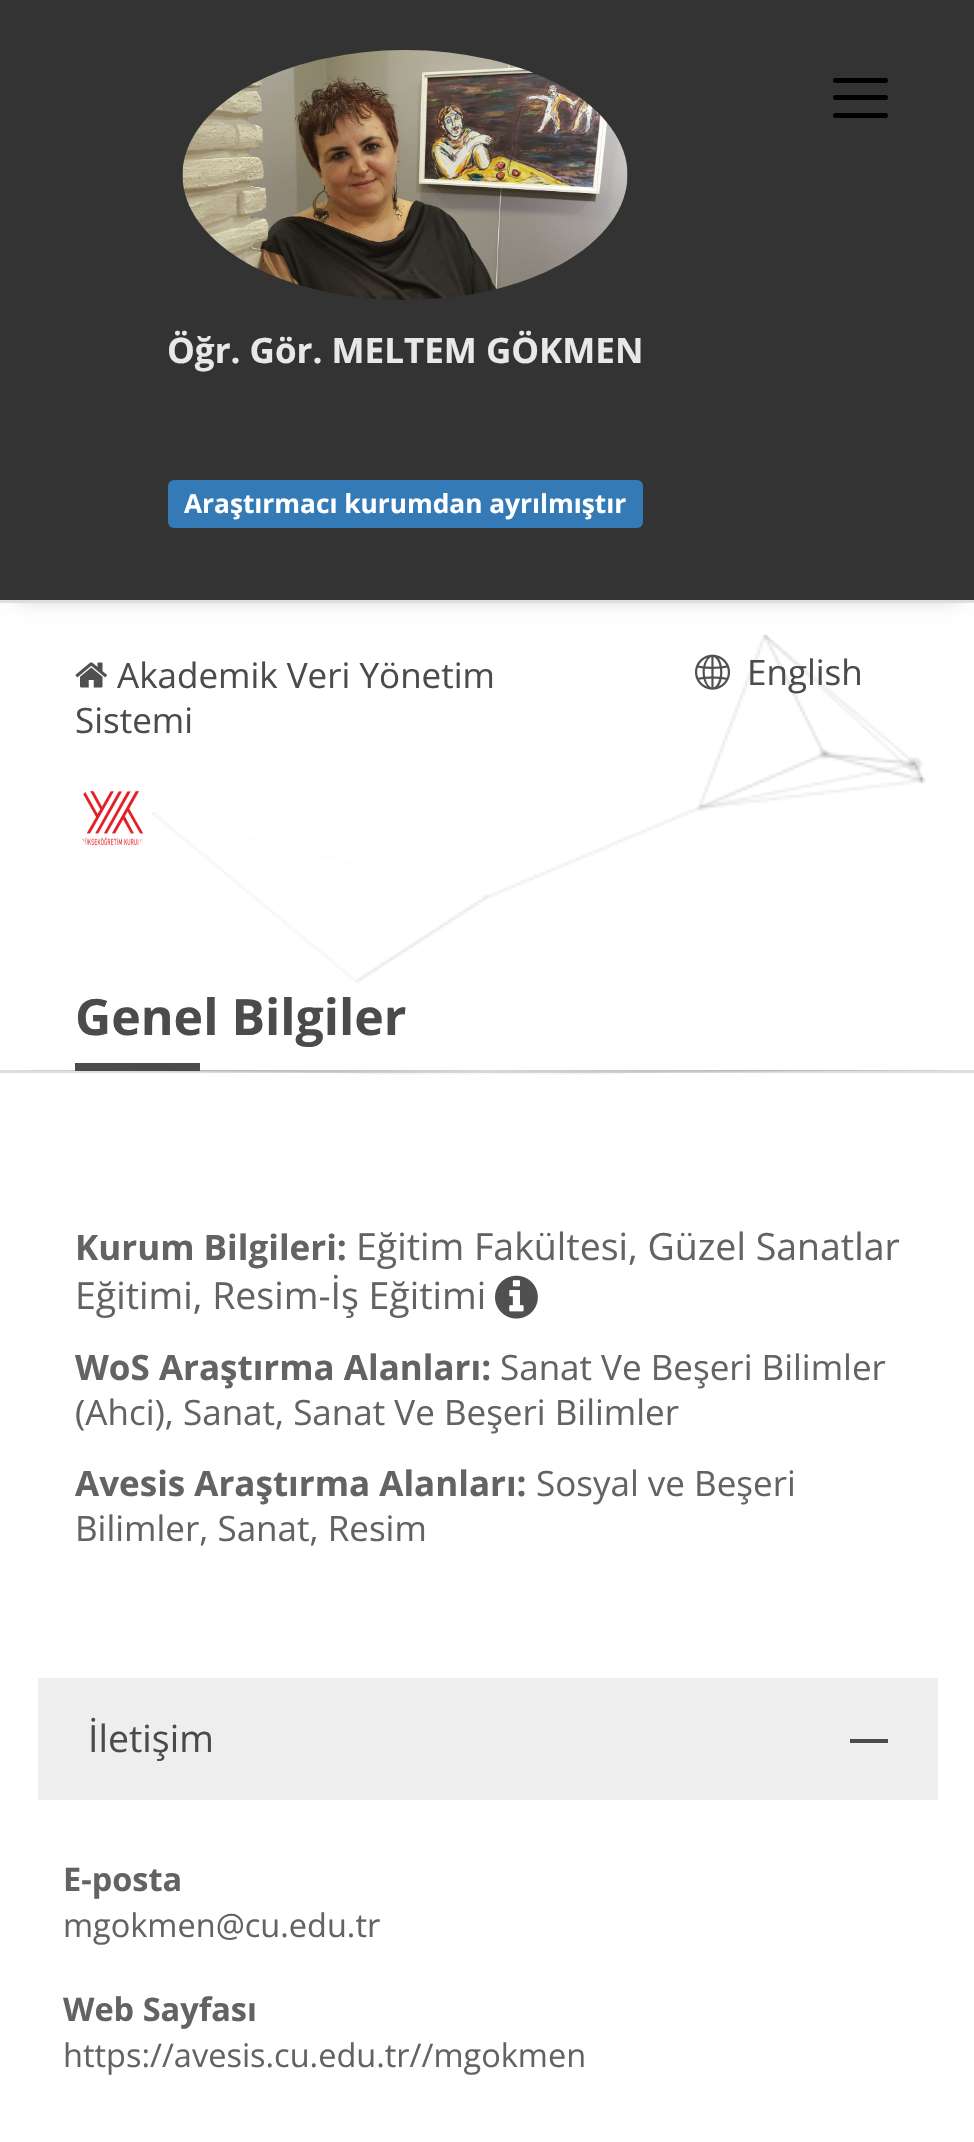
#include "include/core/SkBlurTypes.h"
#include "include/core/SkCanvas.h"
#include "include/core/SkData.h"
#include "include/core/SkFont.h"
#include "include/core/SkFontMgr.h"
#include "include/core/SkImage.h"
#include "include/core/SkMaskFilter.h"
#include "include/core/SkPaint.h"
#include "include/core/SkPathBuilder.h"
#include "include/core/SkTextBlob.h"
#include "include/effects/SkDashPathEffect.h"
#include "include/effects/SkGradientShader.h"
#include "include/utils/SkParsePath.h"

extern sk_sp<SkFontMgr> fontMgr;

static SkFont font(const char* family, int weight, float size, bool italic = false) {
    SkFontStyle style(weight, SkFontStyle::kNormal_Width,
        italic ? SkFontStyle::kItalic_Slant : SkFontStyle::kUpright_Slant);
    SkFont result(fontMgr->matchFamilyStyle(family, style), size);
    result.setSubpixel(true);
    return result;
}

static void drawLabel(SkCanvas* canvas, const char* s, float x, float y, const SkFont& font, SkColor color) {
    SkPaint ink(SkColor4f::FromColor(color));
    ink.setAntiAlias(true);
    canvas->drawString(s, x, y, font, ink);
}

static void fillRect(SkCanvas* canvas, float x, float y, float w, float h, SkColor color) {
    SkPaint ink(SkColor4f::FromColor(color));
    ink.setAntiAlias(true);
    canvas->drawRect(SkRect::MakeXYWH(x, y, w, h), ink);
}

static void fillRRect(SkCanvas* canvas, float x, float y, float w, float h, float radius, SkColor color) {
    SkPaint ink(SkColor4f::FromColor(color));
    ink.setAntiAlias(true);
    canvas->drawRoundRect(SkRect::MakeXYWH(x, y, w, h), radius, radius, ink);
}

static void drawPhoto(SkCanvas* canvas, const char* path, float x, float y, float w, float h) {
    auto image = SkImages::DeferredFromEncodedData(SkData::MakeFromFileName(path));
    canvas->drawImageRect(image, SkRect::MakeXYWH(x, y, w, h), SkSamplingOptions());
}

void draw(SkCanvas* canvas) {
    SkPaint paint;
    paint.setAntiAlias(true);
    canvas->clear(0xFFFFFFFF);
    paint.setColor(0x80000000);
    paint.setMaskFilter(SkMaskFilter::MakeBlur(kNormal_SkBlurStyle, 12.5f));
    canvas->drawRect(SkRect::MakeXYWH(18, 23, 940, 567), paint);
    paint.setMaskFilter(nullptr);
    fillRect(canvas, 0, 0, 974, 600, 0xFF333333);
    fillRect(canvas, 0, 600, 974, 3, 0xFFDEDEDE);
    fillRRect(canvas, 833, 78, 55, 5, 2.5f, 0xFF000000);
    fillRRect(canvas, 833, 95, 55, 5, 2.5f, 0xFF000000);
    fillRRect(canvas, 833, 113, 55, 5, 2.5f, 0xFF000000);
    drawPhoto(canvas, "assets/img1.png", 182, 50, 446, 250);
    SkFont font1 = font("Open Sans", 700, 35);
    drawLabel(canvas, "Öğr. Gör. MELTEM GÖKMEN", 167, 363, font1, 0xFFE8E8E8);
    fillRRect(canvas, 168, 480, 475, 48, 6, 0xFF337AB7);
    SkFont font2 = font("Open Sans", 700, 26.25f);
    drawLabel(canvas, "Araştırmacı kurumdan ayrılmıştır", 184, 513, font2, 0xFFFFFFFF);
    fillRect(canvas, 0, 1070, 974, 3, 0xFFDEDEDE);
    drawPhoto(canvas, "assets/img2.png", 152, 634, 774, 349);
    drawPhoto(canvas, "assets/img3.png", 75, 662, 32, 26);
    SkFont font3 = font("Open Sans", 400, 35);
    drawLabel(canvas, "Akademik Veri Yönetim", 117, 688, font3, 0xFF4B4B4B);
    drawLabel(canvas, "Sistemi", 75, 733, font3, 0xFF4B4B4B);
    drawPhoto(canvas, "assets/img4.png", 695, 654, 35, 36);
    drawLabel(canvas, "English", 747, 685, font3, 0xFF4B4B4B);
    drawPhoto(canvas, "assets/img5.png", 81, 790, 63, 56);
    SkFont font4 = font("Open Sans", 700, 50);
    drawLabel(canvas, "Genel Bilgiler", 75, 1035, font4, 0xFF4B4B4B);
    drawPhoto(canvas, "assets/img6.png", 22, 1070, 927, 5);
    fillRect(canvas, 75, 1063, 125, 8, 0xFF4B4B4B);
    SkFont font5 = font("Open Sans", 400, 37.5f);
    drawLabel(canvas, "Eğitim Fakültesi, Güzel Sanatlar", 356, 1260, font5, 0xFF636363);
    drawLabel(canvas, "Eğitimi, Resim-İş Eğitimi", 75, 1309, font5, 0xFF636363);
    drawPhoto(canvas, "assets/img7.png", 495, 1275, 43, 44);
    drawLabel(canvas, "Kurum Bilgileri:", 75, 1260, font1, 0xFF636363);
    drawLabel(canvas, "WoS Araştırma Alanları:", 75, 1380, font1, 0xFF636363);
    drawLabel(canvas, "Sanat Ve Beşeri Bilimler", 500, 1380, font3, 0xFF636363);
    drawLabel(canvas, "(Ahci), Sanat, Sanat Ve Beşeri Bilimler", 75, 1425, font3, 0xFF636363);
    drawLabel(canvas, "Avesis Araştırma Alanları:", 75, 1496, font1, 0xFF636363);
    drawLabel(canvas, "Sosyal ve Beşeri", 536, 1496, font3, 0xFF636363);
    drawLabel(canvas, "Bilimler, Sanat, Resim", 75, 1541, font3, 0xFF636363);
    fillRect(canvas, 38, 1678, 900, 122, 0xFFEEEEEE);
    drawLabel(canvas, "İletişim", 88, 1752, font5, 0xFF4B4B4B);
    fillRect(canvas, 850, 1739, 38, 4, 0xFF4B4B4B);
    SkFont font6 = font("Open Sans", 700, 32.5f);
    drawLabel(canvas, "E-posta", 63, 1891, font6, 0xFF636363);
    SkFont font7 = font("Open Sans", 400, 32.5f);
    drawLabel(canvas, "mgokmen@cu.edu.tr", 63, 1937, font7, 0xFF636363);
    drawLabel(canvas, "Web Sayfası", 63, 2021, font6, 0xFF636363);
    drawLabel(canvas, "https://avesis.cu.edu.tr//mgokmen", 63, 2067, font7, 0xFF636363);
}
